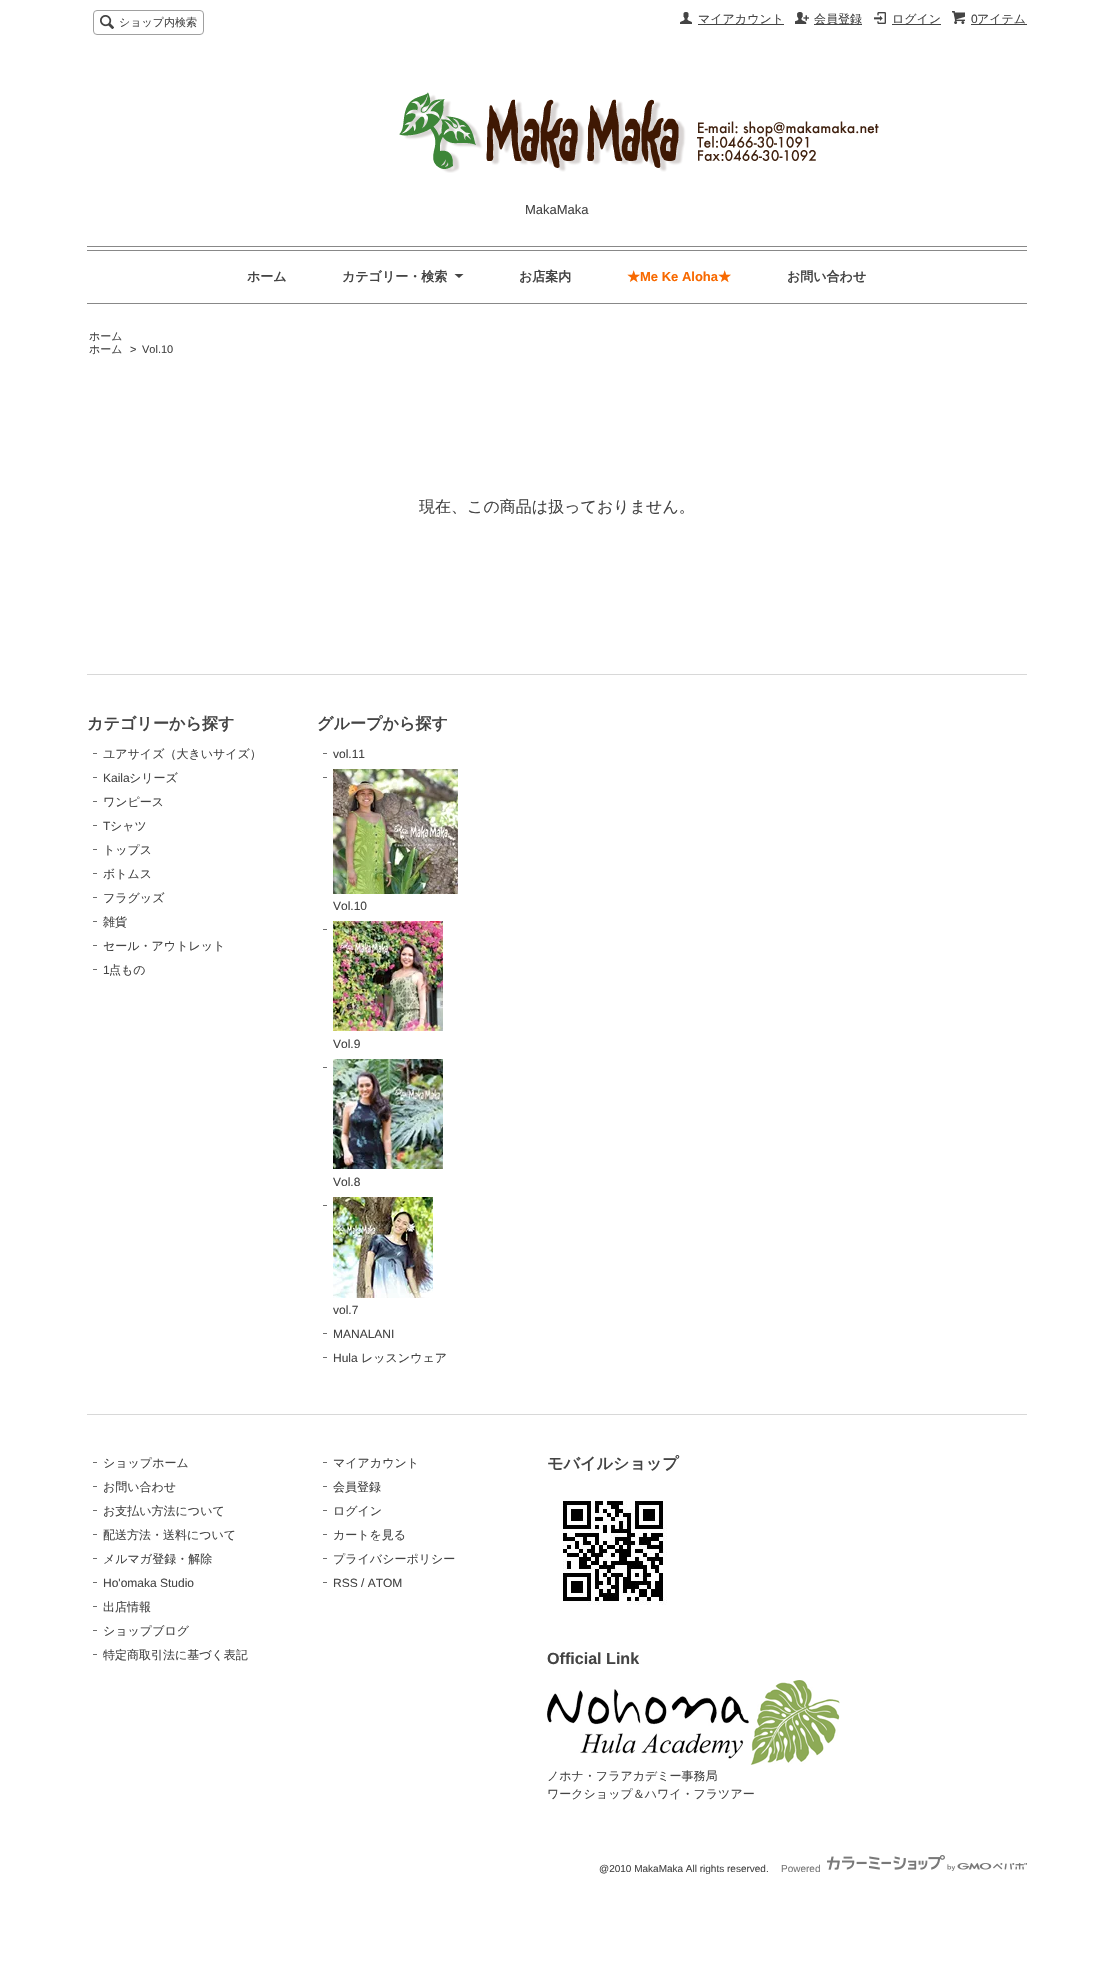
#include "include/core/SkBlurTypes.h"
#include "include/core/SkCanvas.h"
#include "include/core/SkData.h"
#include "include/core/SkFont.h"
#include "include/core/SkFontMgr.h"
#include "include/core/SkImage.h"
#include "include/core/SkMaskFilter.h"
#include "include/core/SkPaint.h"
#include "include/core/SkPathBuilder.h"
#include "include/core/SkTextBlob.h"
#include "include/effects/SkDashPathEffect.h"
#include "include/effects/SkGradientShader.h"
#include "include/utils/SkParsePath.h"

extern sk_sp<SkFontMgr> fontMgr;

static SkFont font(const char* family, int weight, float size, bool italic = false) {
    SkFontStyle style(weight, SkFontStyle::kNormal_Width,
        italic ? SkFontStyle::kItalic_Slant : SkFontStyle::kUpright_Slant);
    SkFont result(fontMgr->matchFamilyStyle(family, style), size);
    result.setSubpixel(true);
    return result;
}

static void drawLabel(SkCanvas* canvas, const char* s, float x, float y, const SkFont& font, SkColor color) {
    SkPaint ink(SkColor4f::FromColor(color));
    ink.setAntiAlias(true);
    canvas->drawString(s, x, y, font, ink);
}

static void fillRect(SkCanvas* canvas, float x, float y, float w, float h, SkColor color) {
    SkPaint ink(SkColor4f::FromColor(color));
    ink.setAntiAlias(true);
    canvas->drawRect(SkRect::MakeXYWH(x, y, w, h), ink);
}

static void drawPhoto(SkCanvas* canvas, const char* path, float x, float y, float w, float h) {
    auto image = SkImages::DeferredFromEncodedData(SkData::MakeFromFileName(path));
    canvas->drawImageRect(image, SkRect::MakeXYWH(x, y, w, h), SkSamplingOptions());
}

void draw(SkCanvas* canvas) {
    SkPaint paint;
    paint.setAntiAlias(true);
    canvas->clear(0xFFFFFFFF);
    paint.setStroke(true);
    paint.setStrokeWidth(1);
    paint.setColor(0xFFA0A0A0);
    canvas->drawRoundRect(SkRect::MakeXYWH(93.5f, 10.5f, 110, 24), 3.5f, 3.5f, paint);
    drawPhoto(canvas, "assets/img1.png", 100, 15, 14, 14);
    SkFont font1 = font("WenQuanYi Zen Hei", 500, 11);
    drawLabel(canvas, "ショップ内検索", 119, 26, font1, 0xFF444444);
    drawPhoto(canvas, "assets/img2.png", 680, 12, 12, 12);
    fillRect(canvas, 698, 24, 86, 1, 0xFF444444);
    SkFont font2 = font("WenQuanYi Zen Hei", 500, 12);
    drawLabel(canvas, "マイアカウント", 698, 23, font2, 0xFF444444);
    drawPhoto(canvas, "assets/img3.png", 795, 12, 14, 12);
    fillRect(canvas, 814, 24, 48, 1, 0xFF444444);
    drawLabel(canvas, "会員登録", 814, 23, font2, 0xFF444444);
    drawPhoto(canvas, "assets/img4.png", 874, 12, 12, 12);
    fillRect(canvas, 892, 24, 49, 1, 0xFF444444);
    drawLabel(canvas, "ログイン", 892, 23, font2, 0xFF444444);
    drawPhoto(canvas, "assets/img5.png", 952, 11, 13, 13);
    SkFont font3 = font("Liberation Sans", 400, 12);
    drawLabel(canvas, "0", 971, 23, font3, 0xFF444444);
    fillRect(canvas, 971, 24, 56, 1, 0xFF444444);
    drawLabel(canvas, "アイテム", 977, 23, font2, 0xFF444444);
    fillRect(canvas, 87, 246, 940, 1, 0xFF888888);
    drawPhoto(canvas, "assets/img6.png", 399, 92, 480, 81);
    SkFont font4 = font("Liberation Sans", 400, 13);
    drawLabel(canvas, "MakaMaka", 525, 214, font4, 0xFF444444);
    fillRect(canvas, 87, 250, 940, 1, 0xFF888888);
    fillRect(canvas, 87, 303, 940, 1, 0xFF888888);
    SkFont font5 = font("WenQuanYi Zen Hei", 700, 13);
    drawLabel(canvas, "ホーム", 247, 281, font5, 0xFF444444);
    drawLabel(canvas, "カテゴリー・検索", 342, 281, font5, 0xFF444444);
    drawPhoto(canvas, "assets/img7.png", 454, 274, 10, 4);
    drawLabel(canvas, "お店案内", 519, 281, font5, 0xFF444444);
    drawLabel(canvas, "★", 627, 281, font5, 0xFFF86900);
    SkFont font6 = font("Liberation Sans", 700, 13);
    drawLabel(canvas, "Me Ke Aloha", 640, 281, font6, 0xFFF86900);
    drawLabel(canvas, "★", 718, 281, font5, 0xFFF86900);
    drawLabel(canvas, "お問い合わせ", 787, 281, font5, 0xFF444444);
    drawLabel(canvas, "ホーム", 89, 340, font1, 0xFF444444);
    drawLabel(canvas, "ホーム", 89, 353, font1, 0xFF444444);
    SkFont font7 = font("Liberation Sans", 400, 11);
    drawLabel(canvas, ">", 130, 353, font7, 0xFF444444);
    drawLabel(canvas, "Vol.10", 142, 353, font7, 0xFF444444);
    SkFont font8 = font("WenQuanYi Zen Hei", 500, 16);
    drawLabel(canvas, "現在、この商品は扱っておりません。", 419, 512, font8, 0xFF444444);
    fillRect(canvas, 87, 674, 940, 1, 0xFFD8D8D8);
    SkFont font9 = font("WenQuanYi Zen Hei", 700, 16.1f);
    drawLabel(canvas, "カテゴリーから探す", 87, 729, font9, 0xFF444444);
    fillRect(canvas, 93, 753, 4, 1, 0xFF6E6E6E);
    drawLabel(canvas, "ユアサイズ（大きいサイズ）", 103, 758, font2, 0xFF444444);
    fillRect(canvas, 93, 777, 4, 1, 0xFF6E6E6E);
    drawLabel(canvas, "Kaila", 103, 782, font3, 0xFF444444);
    drawLabel(canvas, "シリーズ", 129, 782, font2, 0xFF444444);
    fillRect(canvas, 93, 801, 4, 1, 0xFF6E6E6E);
    drawLabel(canvas, "ワンピース", 103, 806, font2, 0xFF444444);
    fillRect(canvas, 93, 825, 4, 1, 0xFF6E6E6E);
    drawLabel(canvas, "T", 103, 830, font3, 0xFF444444);
    drawLabel(canvas, "シャツ", 110, 830, font2, 0xFF444444);
    fillRect(canvas, 93, 849, 4, 1, 0xFF6E6E6E);
    drawLabel(canvas, "トップス", 103, 854, font2, 0xFF444444);
    fillRect(canvas, 93, 873, 4, 1, 0xFF6E6E6E);
    drawLabel(canvas, "ボトムス", 103, 878, font2, 0xFF444444);
    fillRect(canvas, 93, 897, 4, 1, 0xFF6E6E6E);
    drawLabel(canvas, "フラグッズ", 103, 902, font2, 0xFF444444);
    fillRect(canvas, 93, 921, 4, 1, 0xFF6E6E6E);
    drawLabel(canvas, "雑貨", 103, 926, font2, 0xFF444444);
    fillRect(canvas, 93, 945, 4, 1, 0xFF6E6E6E);
    drawLabel(canvas, "セール・アウトレット", 103, 950, font2, 0xFF444444);
    fillRect(canvas, 93, 969, 4, 1, 0xFF6E6E6E);
    drawLabel(canvas, "1", 103, 974, font3, 0xFF444444);
    drawLabel(canvas, "点もの", 109, 974, font2, 0xFF444444);
    drawLabel(canvas, "グループから探す", 317, 729, font9, 0xFF444444);
    fillRect(canvas, 323, 753, 4, 1, 0xFF6E6E6E);
    drawLabel(canvas, "vol.11", 333, 758, font3, 0xFF444444);
    fillRect(canvas, 323, 777, 4, 1, 0xFF6E6E6E);
    drawPhoto(canvas, "assets/img8.png", 333, 769, 125, 125);
    drawLabel(canvas, "Vol.10", 333, 910, font3, 0xFF444444);
    fillRect(canvas, 323, 929, 4, 1, 0xFF6E6E6E);
    drawPhoto(canvas, "assets/img9.png", 333, 921, 110, 110);
    drawLabel(canvas, "Vol.9", 333, 1048, font3, 0xFF444444);
    fillRect(canvas, 323, 1067, 4, 1, 0xFF6E6E6E);
    drawPhoto(canvas, "assets/img10.png", 333, 1059, 110, 110);
    drawLabel(canvas, "Vol.8", 333, 1186, font3, 0xFF444444);
    fillRect(canvas, 323, 1205, 4, 1, 0xFF6E6E6E);
    drawPhoto(canvas, "assets/img11.png", 333, 1197, 100, 101);
    drawLabel(canvas, "vol.7", 333, 1314, font3, 0xFF444444);
    fillRect(canvas, 323, 1333, 4, 1, 0xFF6E6E6E);
    drawLabel(canvas, "MANALANI", 333, 1338, font3, 0xFF444444);
    fillRect(canvas, 323, 1357, 4, 1, 0xFF6E6E6E);
    drawLabel(canvas, "Hula", 333, 1362, font3, 0xFF444444);
    drawLabel(canvas, "レッスンウェア", 361, 1362, font2, 0xFF444444);
    fillRect(canvas, 87, 1414, 940, 1, 0xFFD8D8D8);
    fillRect(canvas, 93, 1462, 4, 1, 0xFF6E6E6E);
    drawLabel(canvas, "ショップホーム", 103, 1467, font2, 0xFF444444);
    fillRect(canvas, 93, 1486, 4, 1, 0xFF6E6E6E);
    drawLabel(canvas, "お問い合わせ", 103, 1491, font2, 0xFF444444);
    fillRect(canvas, 93, 1510, 4, 1, 0xFF6E6E6E);
    drawLabel(canvas, "お支払い方法について", 103, 1515, font2, 0xFF444444);
    fillRect(canvas, 93, 1534, 4, 1, 0xFF6E6E6E);
    drawLabel(canvas, "配送方法・送料について", 103, 1539, font2, 0xFF444444);
    fillRect(canvas, 93, 1558, 4, 1, 0xFF6E6E6E);
    drawLabel(canvas, "メルマガ登録・解除", 103, 1563, font2, 0xFF444444);
    fillRect(canvas, 93, 1582, 4, 1, 0xFF6E6E6E);
    drawLabel(canvas, "Ho'omaka Studio", 103, 1587, font3, 0xFF444444);
    fillRect(canvas, 93, 1606, 4, 1, 0xFF6E6E6E);
    drawLabel(canvas, "出店情報", 103, 1611, font2, 0xFF444444);
    fillRect(canvas, 93, 1630, 4, 1, 0xFF6E6E6E);
    drawLabel(canvas, "ショップブログ", 103, 1635, font2, 0xFF444444);
    fillRect(canvas, 93, 1654, 4, 1, 0xFF6E6E6E);
    drawLabel(canvas, "特定商取引法に基づく表記", 103, 1659, font2, 0xFF444444);
    fillRect(canvas, 323, 1462, 4, 1, 0xFF6E6E6E);
    drawLabel(canvas, "マイアカウント", 333, 1467, font2, 0xFF444444);
    fillRect(canvas, 323, 1486, 4, 1, 0xFF6E6E6E);
    drawLabel(canvas, "会員登録", 333, 1491, font2, 0xFF444444);
    fillRect(canvas, 323, 1510, 4, 1, 0xFF6E6E6E);
    drawLabel(canvas, "ログイン", 333, 1515, font2, 0xFF444444);
    fillRect(canvas, 323, 1534, 4, 1, 0xFF6E6E6E);
    drawLabel(canvas, "カートを見る", 333, 1539, font2, 0xFF444444);
    fillRect(canvas, 323, 1558, 4, 1, 0xFF6E6E6E);
    drawLabel(canvas, "プライバシーポリシー", 333, 1563, font2, 0xFF444444);
    fillRect(canvas, 323, 1582, 4, 1, 0xFF6E6E6E);
    drawLabel(canvas, "RSS / ATOM", 333, 1587, font3, 0xFF444444);
    drawLabel(canvas, "モバイルショップ", 547, 1469, font9, 0xFF444444);
    drawPhoto(canvas, "assets/img12.png", 563, 1501, 104, 104);
    SkFont font10 = font("Liberation Sans", 700, 16.1f);
    drawLabel(canvas, "Official Link", 547, 1664, font10, 0xFF444444);
    drawPhoto(canvas, "assets/img13.png", 547, 1680, 293, 85);
    drawLabel(canvas, "ノホナ・フラアカデミー事務局", 547, 1780, font2, 0xFF444444);
    drawLabel(canvas, "ワークショップ＆ハワイ・フラツアー", 547, 1798, font2, 0xFF444444);
    SkFont font11 = font("Liberation Sans", 400, 10);
    drawLabel(canvas, "@2010 MakaMaka All rights reserved.", 599, 1872, font11, 0xFF444444);
    drawLabel(canvas, "Powered", 781, 1872, font11, 0xFF777777);
    drawPhoto(canvas, "assets/img14.png", 827, 1855, 200, 16);
}
